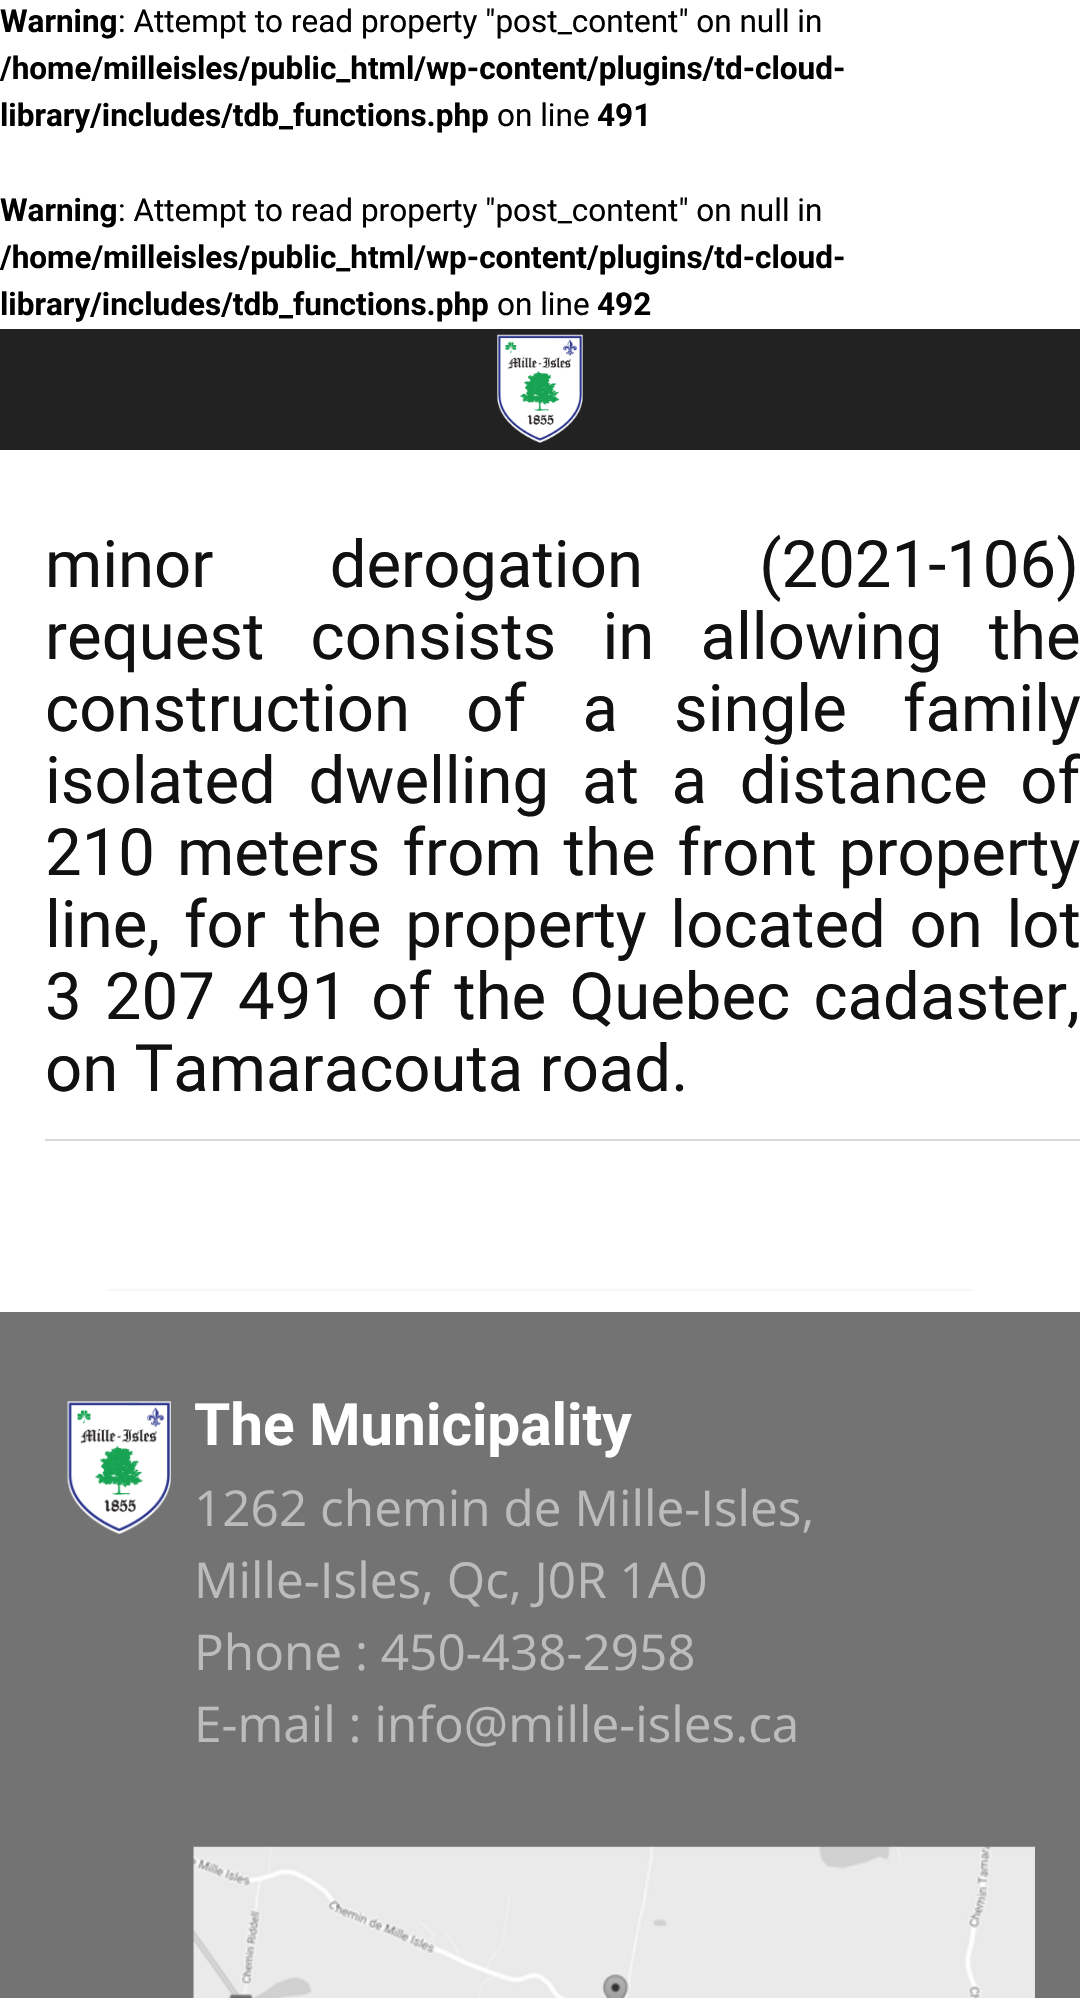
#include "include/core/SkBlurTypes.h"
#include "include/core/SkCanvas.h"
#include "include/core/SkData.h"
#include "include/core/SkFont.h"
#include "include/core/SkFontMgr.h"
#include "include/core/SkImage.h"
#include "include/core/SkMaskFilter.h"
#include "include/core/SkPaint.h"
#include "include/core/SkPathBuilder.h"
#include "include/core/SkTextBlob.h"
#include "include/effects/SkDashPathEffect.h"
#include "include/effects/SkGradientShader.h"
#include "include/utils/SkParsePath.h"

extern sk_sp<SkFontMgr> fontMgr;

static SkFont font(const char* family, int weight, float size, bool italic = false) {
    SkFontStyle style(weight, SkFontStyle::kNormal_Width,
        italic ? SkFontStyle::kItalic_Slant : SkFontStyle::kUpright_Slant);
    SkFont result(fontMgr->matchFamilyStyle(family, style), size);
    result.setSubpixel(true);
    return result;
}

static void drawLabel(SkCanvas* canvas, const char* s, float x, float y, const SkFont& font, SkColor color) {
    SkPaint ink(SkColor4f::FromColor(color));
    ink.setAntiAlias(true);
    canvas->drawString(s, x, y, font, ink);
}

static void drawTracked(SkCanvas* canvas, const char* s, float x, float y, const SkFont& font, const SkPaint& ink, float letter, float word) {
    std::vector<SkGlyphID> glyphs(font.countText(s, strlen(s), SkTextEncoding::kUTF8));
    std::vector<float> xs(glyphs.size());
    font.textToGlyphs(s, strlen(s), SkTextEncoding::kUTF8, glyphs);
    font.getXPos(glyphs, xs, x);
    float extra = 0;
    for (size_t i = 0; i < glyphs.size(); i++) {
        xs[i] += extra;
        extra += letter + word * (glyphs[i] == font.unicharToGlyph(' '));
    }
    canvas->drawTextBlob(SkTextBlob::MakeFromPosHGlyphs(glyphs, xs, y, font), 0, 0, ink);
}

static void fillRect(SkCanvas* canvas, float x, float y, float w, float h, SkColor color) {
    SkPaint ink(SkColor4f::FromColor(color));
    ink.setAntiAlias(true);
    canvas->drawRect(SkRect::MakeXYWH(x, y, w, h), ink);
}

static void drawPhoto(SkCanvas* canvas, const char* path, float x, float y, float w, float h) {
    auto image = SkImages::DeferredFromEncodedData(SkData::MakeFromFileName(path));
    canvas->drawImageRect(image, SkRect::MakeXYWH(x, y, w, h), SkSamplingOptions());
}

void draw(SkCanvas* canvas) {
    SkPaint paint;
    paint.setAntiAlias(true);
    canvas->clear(0xFFFFFFFF);
    SkFont font1 = font("Roboto", 700, 31.5f);
    drawLabel(canvas, "Warning", 0, 32, font1, 0xFF000000);
    SkFont font2 = font("Roboto", 400, 31.5f);
    drawLabel(canvas, ": Attempt to read property \"post_content\" on null in", 118, 32, font2, 0xFF000000);
    drawLabel(canvas, "/home/milleisles/public_html/wp-content/plugins/td-cloud-", 0, 79, font1, 0xFF000000);
    drawLabel(canvas, "library/includes/tdb_functions.php", 0, 126, font1, 0xFF000000);
    drawLabel(canvas, "on line", 497, 126, font2, 0xFF000000);
    drawLabel(canvas, "491", 597, 126, font1, 0xFF000000);
    drawLabel(canvas, "Warning", 0, 221, font1, 0xFF000000);
    drawLabel(canvas, ": Attempt to read property \"post_content\" on null in", 118, 221, font2, 0xFF000000);
    drawLabel(canvas, "/home/milleisles/public_html/wp-content/plugins/td-cloud-", 0, 268, font1, 0xFF000000);
    drawLabel(canvas, "library/includes/tdb_functions.php", 0, 315, font1, 0xFF000000);
    drawLabel(canvas, "on line", 497, 315, font2, 0xFF000000);
    drawLabel(canvas, "492", 597, 315, font1, 0xFF000000);
    fillRect(canvas, 0, 329, 1080, 121, 0xFF222222);
    drawPhoto(canvas, "assets/img1.png", 497, 334, 86, 109);
    fillRect(canvas, 45, 1139, 1035, 2, 0xFFD7D7D7);
    SkFont font3 = font("Roboto", 400, 65.25f);
    paint.setColor(0xFF111111);
    drawTracked(canvas, "minor derogation (2021-106)", 45, 587, font3, paint, 0, 100);
    drawTracked(canvas, "request consists in allowing the", 45, 659, font3, paint, 0, 30);
    drawTracked(canvas, "construction of a single family", 45, 731, font3, paint, 0, 40);
    drawTracked(canvas, "isolated dwelling at a distance of", 45, 803, font3, paint, 0, 16.5f);
    drawTracked(canvas, "210 meters from the front property", 45, 875, font3, paint, 0, 5.75f);
    drawTracked(canvas, "line, for the property located on lot", 45, 947, font3, paint, 0, 7.5f);
    drawTracked(canvas, "3 207 491 of the Quebec cadaster,", 45, 1019, font3, paint, 0, 7);
    drawLabel(canvas, "on Tamaracouta road.", 45, 1091, font3, 0xFF111111);
    fillRect(canvas, 0, 1312, 1080, 686, 0xFF737373);
    fillRect(canvas, 108, 1289, 864, 2, 0xFFF8F8F8);
    drawPhoto(canvas, "assets/img2.png", 67, 1401, 104, 133);
    SkFont font4 = font("Roboto", 700, 58.5f);
    drawLabel(canvas, "The Municipality", 194, 1445, font4, 0xFFFFFFFF);
    SkFont font5 = font("Open Sans", 400, 49.5f);
    drawLabel(canvas, "1262 chemin de Mille-Isles,", 194, 1526, font5, 0xFFBDBCBC);
    drawLabel(canvas, "Mille-Isles, Qc, J0R 1A0", 194, 1598, font5, 0xFFBDBCBC);
    drawLabel(canvas, "Phone : 450-438-2958", 194, 1670, font5, 0xFFBDBCBC);
    drawLabel(canvas, "E-mail : info@mille-isles.ca", 194, 1742, font5, 0xFFBDBCBC);
    drawPhoto(canvas, "assets/img3.png", 193, 1846, 842, 152);
}
